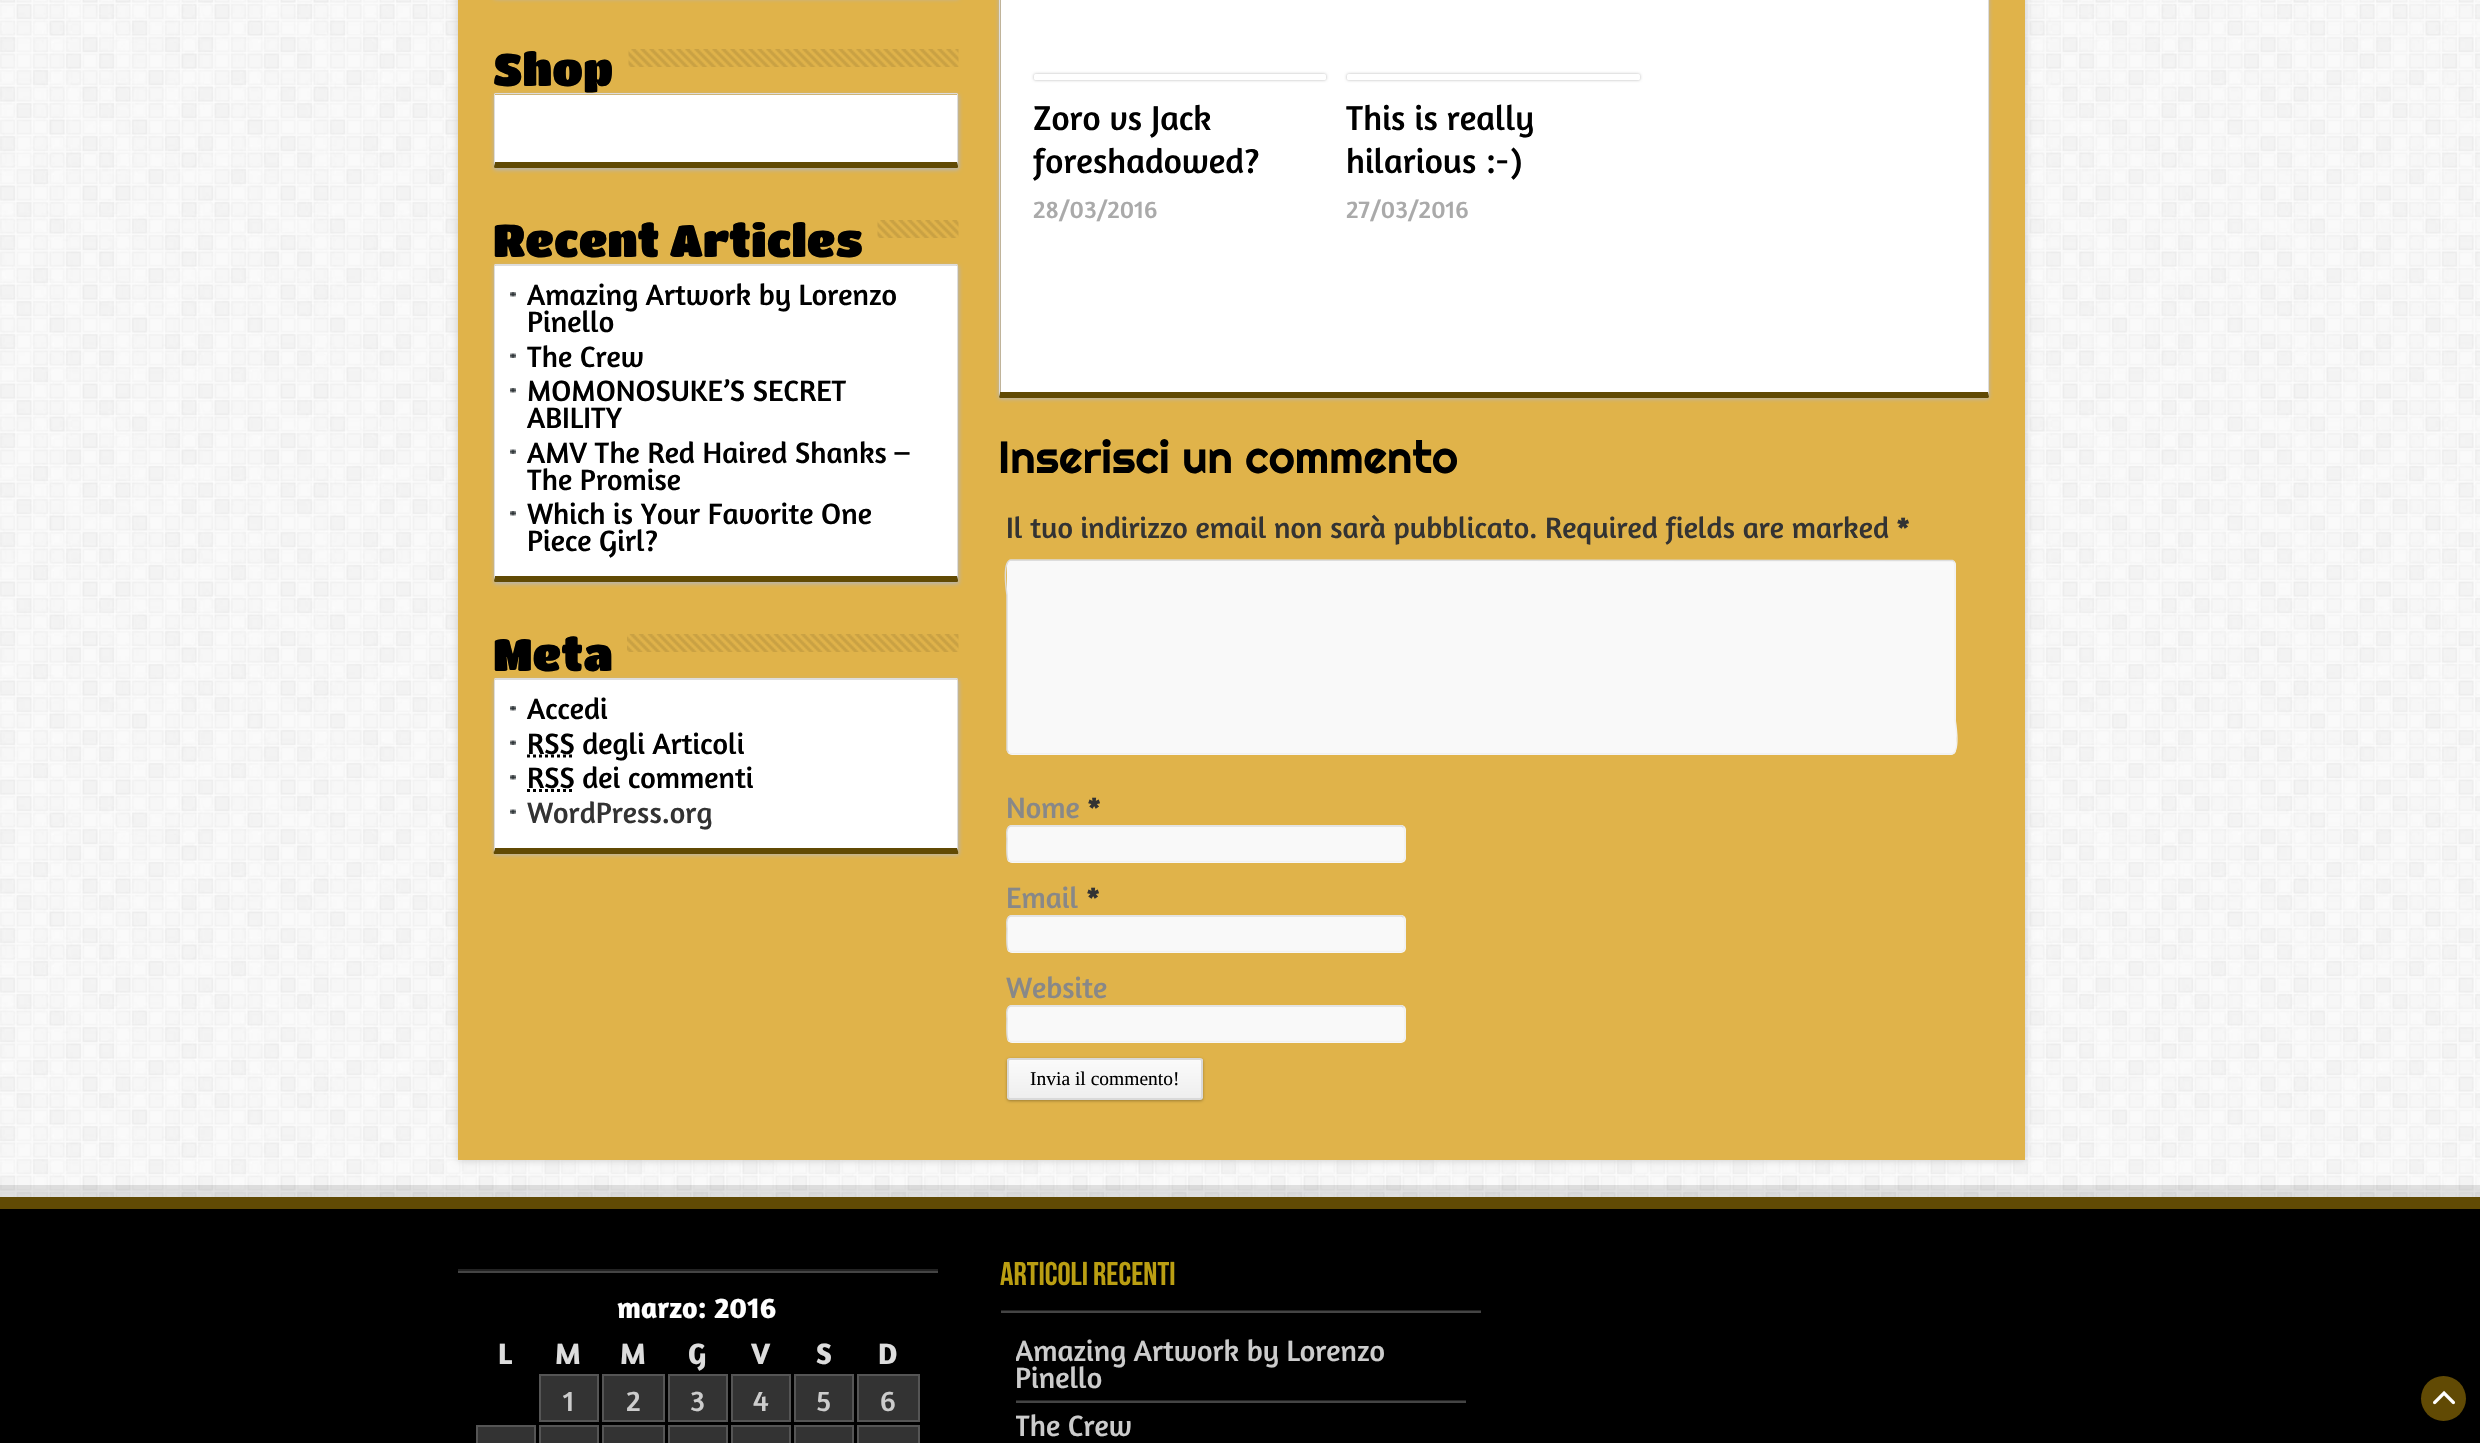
#include "include/core/SkBlurTypes.h"
#include "include/core/SkCanvas.h"
#include "include/core/SkData.h"
#include "include/core/SkFont.h"
#include "include/core/SkFontMgr.h"
#include "include/core/SkImage.h"
#include "include/core/SkMaskFilter.h"
#include "include/core/SkPaint.h"
#include "include/core/SkPathBuilder.h"
#include "include/core/SkTextBlob.h"
#include "include/effects/SkDashPathEffect.h"
#include "include/effects/SkGradientShader.h"
#include "include/utils/SkParsePath.h"

extern sk_sp<SkFontMgr> fontMgr;

static SkFont font(const char* family, int weight, float size, bool italic = false) {
    SkFontStyle style(weight, SkFontStyle::kNormal_Width,
        italic ? SkFontStyle::kItalic_Slant : SkFontStyle::kUpright_Slant);
    SkFont result(fontMgr->matchFamilyStyle(family, style), size);
    result.setSubpixel(true);
    return result;
}

static void drawLabel(SkCanvas* canvas, const char* s, float x, float y, const SkFont& font, SkColor color) {
    SkPaint ink(SkColor4f::FromColor(color));
    ink.setAntiAlias(true);
    canvas->drawString(s, x, y, font, ink);
}

static void fillRect(SkCanvas* canvas, float x, float y, float w, float h, SkColor color) {
    SkPaint ink(SkColor4f::FromColor(color));
    ink.setAntiAlias(true);
    canvas->drawRect(SkRect::MakeXYWH(x, y, w, h), ink);
}

static void fillRRect(SkCanvas* canvas, float x, float y, float w, float h, float radius, SkColor color) {
    SkPaint ink(SkColor4f::FromColor(color));
    ink.setAntiAlias(true);
    canvas->drawRoundRect(SkRect::MakeXYWH(x, y, w, h), radius, radius, ink);
}

static void drawPhoto(SkCanvas* canvas, const char* path, float x, float y, float w, float h) {
    auto image = SkImages::DeferredFromEncodedData(SkData::MakeFromFileName(path));
    canvas->drawImageRect(image, SkRect::MakeXYWH(x, y, w, h), SkSamplingOptions());
}

static SkPath parsePath(const char* data, bool evenOdd = false) {
    SkPath result = *SkParsePath::FromSVGString(data);
    if (evenOdd) result.setFillType(SkPathFillType::kEvenOdd);
    return result;
}

void draw(SkCanvas* canvas) {
    SkPaint paint;
    paint.setAntiAlias(true);
    canvas->clear(0xFFFFFFFF);
    drawPhoto(canvas, "assets/img1.png", 0, 0, 2480, 1197);
    paint.setColor(0xFFCACACA);
    paint.setMaskFilter(SkMaskFilter::MakeBlur(kNormal_SkBlurStyle, 4));
    canvas->drawRect(SkRect::MakeXYWH(458, -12, 1567, 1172), paint);
    paint.setMaskFilter(nullptr);
    fillRect(canvas, 458, 0, 1567, 1160, 0xFFE0B34A);
    paint.setColor(0xFFB5B5B5);
    paint.setMaskFilter(SkMaskFilter::MakeBlur(kNormal_SkBlurStyle, 2));
    canvas->drawRoundRect(SkRect::MakeXYWH(494, -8, 465, 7), 1.5f, 1.5f, paint);
    paint.setMaskFilter(nullptr);
    paint.setMaskFilter(SkMaskFilter::MakeBlur(kNormal_SkBlurStyle, 2));
    canvas->drawRoundRect(SkRect::MakeXYWH(494, 95, 465, 75), 1.5f, 1.5f, paint);
    paint.setMaskFilter(nullptr);
    SkFont font1 = font("Titan One", 400, 45);
    drawLabel(canvas, "Shop", 493, 86, font1, 0xFF000000);
    drawPhoto(canvas, "assets/img2.png", 628, 49, 331, 18);
    fillRect(canvas, 495, 95, 462, 67, 0xFFFFFFFF);
    paint.setColor(0xFFDDDDDD);
    canvas->drawPath(parsePath("M495 93L494 94H495H957H958L957 93Z"), paint);
    canvas->drawPath(parsePath("M958 94V166L957 162V94Z"), paint);
    paint.setColor(0xFF614A04);
    canvas->drawPath(parsePath("M495 168H957C958 168 958 167 958 166L957 162H495C495 162 493 168 495 168Z"), paint);
    paint.setColor(0xFFDDDDDD);
    canvas->drawPath(parsePath("M494 94V166L495 162V94Z"), paint);
    drawLabel(canvas, "Recent Articles", 493, 257, font1, 0xFF000000);
    drawPhoto(canvas, "assets/img3.png", 877, 220, 82, 18);
    paint.setColor(0xFFB5B5B5);
    paint.setMaskFilter(SkMaskFilter::MakeBlur(kNormal_SkBlurStyle, 2));
    canvas->drawRoundRect(SkRect::MakeXYWH(494, 266, 465, 318), 1.5f, 1.5f, paint);
    paint.setMaskFilter(nullptr);
    fillRect(canvas, 495, 266, 462, 310, 0xFFFFFFFF);
    paint.setColor(0xFFDDDDDD);
    canvas->drawPath(parsePath("M495 264L494 265L496 266H956L958 265L957 264Z"), paint);
    canvas->drawPath(parsePath("M958 265V580L957 576V266H956Z"), paint);
    paint.setColor(0xFF614A04);
    canvas->drawPath(parsePath("M495 582H957C958 582 958 581 958 580L957 576H495C495 576 493 582 495 582Z"), paint);
    paint.setColor(0xFFDDDDDD);
    canvas->drawPath(parsePath("M495 266H496L494 265V580L495 576Z"), paint);
    drawPhoto(canvas, "assets/img4.png", 510, 292, 6, 5);
    SkFont font2 = font("Amaranth", 400, 30);
    drawLabel(canvas, "Amazing Artwork by Lorenzo", 527, 305, font2, 0xFF000000);
    drawLabel(canvas, "Pinello", 527, 332, font2, 0xFF000000);
    drawPhoto(canvas, "assets/img5.png", 510, 353, 6, 5);
    drawLabel(canvas, "The Crew", 527, 367, font2, 0xFF000000);
    drawPhoto(canvas, "assets/img4.png", 510, 388, 6, 5);
    drawLabel(canvas, "MOMONOSUKE’S SECRET", 527, 401, font2, 0xFF000000);
    drawLabel(canvas, "ABILITY", 527, 428, font2, 0xFF000000);
    drawPhoto(canvas, "assets/img5.png", 510, 449, 6, 5);
    drawLabel(canvas, "AMV The Red Haired Shanks –", 527, 463, font2, 0xFF000000);
    drawLabel(canvas, "The Promise", 527, 490, font2, 0xFF000000);
    drawPhoto(canvas, "assets/img4.png", 510, 511, 6, 5);
    drawLabel(canvas, "Which is Your Favorite One", 527, 524, font2, 0xFF000000);
    drawLabel(canvas, "Piece Girl?", 527, 551, font2, 0xFF000000);
    drawLabel(canvas, "Meta", 493, 671, font1, 0xFF000000);
    drawPhoto(canvas, "assets/img6.png", 627, 634, 332, 18);
    paint.setColor(0xFFB5B5B5);
    paint.setMaskFilter(SkMaskFilter::MakeBlur(kNormal_SkBlurStyle, 2));
    canvas->drawRoundRect(SkRect::MakeXYWH(494, 680, 465, 175), 1.5f, 1.5f, paint);
    paint.setMaskFilter(nullptr);
    fillRect(canvas, 495, 680, 462, 168, 0xFFFFFFFF);
    paint.setColor(0xFFDDDDDD);
    canvas->drawPath(parsePath("M495 678L494 679L496 680H956L958 679L957 678Z"), paint);
    canvas->drawPath(parsePath("M958 679V852L957 848V680H956Z"), paint);
    paint.setColor(0xFF614A04);
    canvas->drawPath(parsePath("M494 854C493 852 495 849 495 848H957C957 849 959 852 958 854Z"), paint);
    paint.setColor(0xFFDDDDDD);
    canvas->drawPath(parsePath("M495 680H496L494 679V852L495 848Z"), paint);
    drawPhoto(canvas, "assets/img4.png", 510, 706, 6, 5);
    drawLabel(canvas, "Accedi", 527, 719, font2, 0xFF000000);
    drawPhoto(canvas, "assets/img5.png", 510, 740, 6, 5);
    paint.setStroke(true);
    paint.setStrokeWidth(3);
    paint.setColor(0xFF000000);
    paint.setPathEffect(SkDashPathEffect::Make({{3, 3}}, 0));
    canvas->drawPath(parsePath("M527 756H575"), paint);
    paint.setPathEffect(nullptr);
    drawLabel(canvas, "RSS degli Articoli", 527, 754, font2, 0xFF000000);
    drawPhoto(canvas, "assets/img4.png", 510, 775, 6, 5);
    drawLabel(canvas, "RSS dei commenti", 527, 788, font2, 0xFF000000);
    paint.setPathEffect(SkDashPathEffect::Make({{3, 3}}, 0));
    canvas->drawPath(parsePath("M527 790.5H575"), paint);
    paint.setPathEffect(nullptr);
    drawPhoto(canvas, "assets/img5.png", 510, 809, 6, 5);
    drawLabel(canvas, "WordPress.org", 527, 823, font2, 0xFF333333);
    paint.setStroke(false);
    paint.setColor(0xFFB5B5B5);
    paint.setMaskFilter(SkMaskFilter::MakeBlur(kNormal_SkBlurStyle, 2));
    canvas->drawRoundRect(SkRect::MakeXYWH(999, -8, 990, 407), 1.5f, 1.5f, paint);
    paint.setMaskFilter(nullptr);
    fillRect(canvas, 1001, 0, 987, 392, 0xFFFFFFFF);
    paint.setColor(0xFFDDDDDD);
    canvas->drawPath(parsePath("M1989 396V-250L1988-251L1987-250H1988V392L1989 397Z"), paint);
    paint.setColor(0xFF614A04);
    canvas->drawPath(parsePath("M1000 398L999 397L1000 392H1988L1989 397L1988 398Z"), paint);
    paint.setColor(0xFFDDDDDD);
    canvas->drawPath(parsePath("M1000-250H1001L1000-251L999-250V397L1000 392Z"), paint);
    paint.setColor(0xFFB5B5B5);
    paint.setMaskFilter(SkMaskFilter::MakeBlur(kNormal_SkBlurStyle, 1.5f));
    canvas->drawRoundRect(SkRect::MakeXYWH(1034, 74, 292, 6), 1.5f, 1.5f, paint);
    paint.setMaskFilter(nullptr);
    fillRRect(canvas, 1034, 74, 292, 6, 1.5f, 0xFFFFFFFF);
    SkFont font3 = font("Amaranth", 400, 35);
    drawLabel(canvas, "Zoro vs Jack", 1033, 130, font3, 0xFF000000);
    drawLabel(canvas, "foreshadowed?", 1033, 173, font3, 0xFF000000);
    SkFont font4 = font("Amaranth", 400, 25.5f);
    drawLabel(canvas, "28/03/2016", 1033, 218, font4, 0xFFAAAAAA);
    paint.setMaskFilter(SkMaskFilter::MakeBlur(kNormal_SkBlurStyle, 1.5f));
    canvas->drawRoundRect(SkRect::MakeXYWH(1347, 74, 293, 6), 1.5f, 1.5f, paint);
    paint.setMaskFilter(nullptr);
    fillRRect(canvas, 1347, 74, 293, 6, 1.5f, 0xFFFFFFFF);
    drawLabel(canvas, "This is really", 1346, 130, font3, 0xFF000000);
    drawLabel(canvas, "hilarious :-)", 1346, 173, font3, 0xFF000000);
    drawLabel(canvas, "27/03/2016", 1346, 218, font4, 0xFFAAAAAA);
    SkFont font5 = font("Righteous", 400, 45);
    drawLabel(canvas, "Inserisci un commento", 998, 473, font5, 0xFF000000);
    drawLabel(canvas, "Il tuo indirizzo email non sarà pubblicato. Required fields are marked", 1006, 538, font2, 0xFF333333);
    SkFont font6 = font("Amaranth", 700, 30);
    drawLabel(canvas, "*", 1896, 538, font6, 0xFF333333);
    fillRRect(canvas, 1007, 560, 949, 195, 5, 0xFFF9F9F9);
    paint.setStroke(true);
    paint.setStrokeWidth(1.5f);
    paint.setColor(0xFFF1F1F1);
    canvas->drawPath(parsePath("M1954 561.5L1955 564V719C1955 719.5 1961 753.5 1951.5 754L1010 753.5L1008.5 752.5"), paint);
    paint.setColor(0xFFDDDDDD);
    canvas->drawPath(parsePath("M1008.5 752.5L1007 750V595C1007 594.5 1001.5 560.5 1011 560L1952.5 560.5L1954 561.5"), paint);
    drawLabel(canvas, "Nome", 1006, 818, font2, 0xFF888888);
    drawLabel(canvas, "*", 1087, 818, font6, 0xFF333333);
    fillRRect(canvas, 1007, 825, 399, 38, 5, 0xFFF9F9F9);
    paint.setColor(0xFFF1F1F1);
    canvas->drawPath(parsePath("M1403.5 827C1406 829.5 1405 844.5 1405 848.5C1405 851.5 1407 860.5 1401.5 861.5H1010.5L1008.5 860.5"), paint);
    paint.setColor(0xFFDDDDDD);
    canvas->drawPath(parsePath("M1008.5 860.5C1006 858 1007 843 1007 839C1007 836 1005 827 1010.5 826H1401.5L1403.5 827"), paint);
    drawLabel(canvas, "Email", 1006, 908, font2, 0xFF888888);
    drawLabel(canvas, "*", 1086, 908, font6, 0xFF333333);
    fillRRect(canvas, 1007, 915, 399, 38, 5, 0xFFF9F9F9);
    paint.setColor(0xFFF1F1F1);
    canvas->drawPath(parsePath("M1403.5 917C1406 919.5 1405 934.5 1405 938.5C1405 941.5 1407 950.5 1401.5 951.5H1010.5L1008.5 950.5"), paint);
    paint.setColor(0xFFDDDDDD);
    canvas->drawPath(parsePath("M1008.5 950.5C1006 948 1007 933 1007 929C1007 926 1005 917 1010.5 916H1401.5L1403.5 917"), paint);
    drawLabel(canvas, "Website", 1006, 998, font2, 0xFF888888);
    fillRRect(canvas, 1007, 1005, 399, 38, 5, 0xFFF9F9F9);
    paint.setColor(0xFFF1F1F1);
    canvas->drawPath(parsePath("M1403.5 1007C1406 1009.5 1405 1024.5 1405 1028.5C1405 1031.5 1407 1040.5 1401.5 1041.5H1010.5L1008.5 1040.5"), paint);
    paint.setColor(0xFFDDDDDD);
    canvas->drawPath(parsePath("M1008.5 1040.5C1006 1038 1007 1023 1007 1019C1007 1016 1005 1007 1010.5 1006H1401.5L1403.5 1007"), paint);
    paint.setStroke(false);
    paint.setColor(0x4D000000);
    paint.setMaskFilter(SkMaskFilter::MakeBlur(kNormal_SkBlurStyle, 1.5f));
    canvas->drawRoundRect(SkRect::MakeXYWH(1007, 1059, 196, 42), 3, 3, paint);
    paint.setMaskFilter(nullptr);
    canvas->save();
    canvas->clipPath(parsePath("M1010 1058H1200C1201.5 1058 1203 1059.5 1203 1061V1097C1203 1098.5 1201.5 1100 1200 1100H1010C1008.5 1100 1007 1098.5 1007 1097V1061C1007 1059.5 1008.5 1058 1010 1058Z"), true);
    {
        const SkColor colors[] = {0xFFFBFBFB, 0xFFEEEEEE};
        const float stops[] = {0, 1};
        const SkPoint ends[] = {{1105, 1059}, {1105, 1098}};
        paint.setShader(SkGradientShader::MakeLinear(ends, colors, stops, 2, SkTileMode::kClamp));
        paint.setAlpha(255);
    }
    canvas->drawRect(SkRect::MakeXYWH(1007, 1059, 196, 39), paint);
    canvas->restore();
    paint.setStroke(true);
    paint.setStrokeWidth(2);
    paint.setShader(nullptr);
    paint.setColor(0xFFD9D9D9);
    canvas->drawRoundRect(SkRect::MakeXYWH(1008, 1059, 194, 40), 2, 2, paint);
    SkFont font7 = font("Liberation Serif", 400, 19.5f);
    drawLabel(canvas, "Invia il commento!", 1030, 1085, font7, 0xFF000000);
    fillRect(canvas, 0, 1185, 2480, 12, 0x1A000000);
    fillRect(canvas, 0, 1209, 2480, 234, 0xFF000000);
    fillRect(canvas, 0, 1197, 2480, 12, 0xFF614A04);
    fillRect(canvas, 458, 1269, 480, 2, 0xFF222222);
    fillRect(canvas, 458, 1271, 480, 2, 0xFF444444);
    drawLabel(canvas, "marzo: 2016", 617, 1318, font6, 0xFFFFFFFF);
    drawLabel(canvas, "L", 498, 1364, font6, 0xFFDDDDDD);
    drawLabel(canvas, "M", 555, 1364, font6, 0xFFDDDDDD);
    drawLabel(canvas, "M", 620, 1364, font6, 0xFFDDDDDD);
    drawLabel(canvas, "G", 688, 1364, font6, 0xFFDDDDDD);
    drawLabel(canvas, "V", 751, 1364, font6, 0xFFDDDDDD);
    drawLabel(canvas, "S", 816, 1364, font6, 0xFFDDDDDD);
    drawLabel(canvas, "D", 878, 1364, font6, 0xFFDDDDDD);
    paint.setStroke(false);
    paint.setColor(0xFF333333);
    canvas->drawRect(SkRect::MakeXYWH(540, 1375, 58, 46), paint);
    paint.setStroke(true);
    paint.setColor(0xFF555555);
    canvas->drawRect(SkRect::MakeXYWH(540, 1375, 58, 46), paint);
    drawLabel(canvas, "1", 563, 1411, font2, 0xFFCCCCCC);
    paint.setStroke(false);
    paint.setColor(0xFF333333);
    canvas->drawRect(SkRect::MakeXYWH(603, 1375, 61, 46), paint);
    paint.setStroke(true);
    paint.setColor(0xFF555555);
    canvas->drawRect(SkRect::MakeXYWH(603, 1375, 61, 46), paint);
    drawLabel(canvas, "2", 626, 1411, font2, 0xFFCCCCCC);
    paint.setStroke(false);
    paint.setColor(0xFF333333);
    canvas->drawRect(SkRect::MakeXYWH(669, 1375, 58, 46), paint);
    paint.setStroke(true);
    paint.setColor(0xFF555555);
    canvas->drawRect(SkRect::MakeXYWH(669, 1375, 58, 46), paint);
    drawLabel(canvas, "3", 690, 1411, font2, 0xFFCCCCCC);
    paint.setStroke(false);
    paint.setColor(0xFF333333);
    canvas->drawRect(SkRect::MakeXYWH(732, 1375, 58, 46), paint);
    paint.setStroke(true);
    paint.setColor(0xFF555555);
    canvas->drawRect(SkRect::MakeXYWH(732, 1375, 58, 46), paint);
    drawLabel(canvas, "4", 753, 1411, font2, 0xFFCCCCCC);
    paint.setStroke(false);
    paint.setColor(0xFF333333);
    canvas->drawRect(SkRect::MakeXYWH(795, 1375, 58, 46), paint);
    paint.setStroke(true);
    paint.setColor(0xFF555555);
    canvas->drawRect(SkRect::MakeXYWH(795, 1375, 58, 46), paint);
    drawLabel(canvas, "5", 816, 1411, font2, 0xFFCCCCCC);
    paint.setStroke(false);
    paint.setColor(0xFF333333);
    canvas->drawRect(SkRect::MakeXYWH(858, 1375, 61, 46), paint);
    paint.setStroke(true);
    paint.setColor(0xFF555555);
    canvas->drawRect(SkRect::MakeXYWH(858, 1375, 61, 46), paint);
    drawLabel(canvas, "6", 880, 1411, font2, 0xFFCCCCCC);
    paint.setStroke(false);
    paint.setColor(0xFF333333);
    canvas->drawRect(SkRect::MakeXYWH(477, 1426, 58, 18), paint);
    paint.setStroke(true);
    paint.setColor(0xFF555555);
    canvas->drawRect(SkRect::MakeXYWH(477, 1426, 58, 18), paint);
    paint.setStroke(false);
    paint.setColor(0xFF333333);
    canvas->drawRect(SkRect::MakeXYWH(540, 1426, 58, 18), paint);
    paint.setStroke(true);
    paint.setColor(0xFF555555);
    canvas->drawRect(SkRect::MakeXYWH(540, 1426, 58, 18), paint);
    paint.setStroke(false);
    paint.setColor(0xFF333333);
    canvas->drawRect(SkRect::MakeXYWH(603, 1426, 61, 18), paint);
    paint.setStroke(true);
    paint.setColor(0xFF555555);
    canvas->drawRect(SkRect::MakeXYWH(603, 1426, 61, 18), paint);
    paint.setStroke(false);
    paint.setColor(0xFF333333);
    canvas->drawRect(SkRect::MakeXYWH(669, 1426, 58, 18), paint);
    paint.setStroke(true);
    paint.setColor(0xFF555555);
    canvas->drawRect(SkRect::MakeXYWH(669, 1426, 58, 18), paint);
    paint.setStroke(false);
    paint.setColor(0xFF333333);
    canvas->drawRect(SkRect::MakeXYWH(732, 1426, 58, 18), paint);
    paint.setStroke(true);
    paint.setColor(0xFF555555);
    canvas->drawRect(SkRect::MakeXYWH(732, 1426, 58, 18), paint);
    paint.setStroke(false);
    paint.setColor(0xFF333333);
    canvas->drawRect(SkRect::MakeXYWH(795, 1426, 58, 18), paint);
    paint.setStroke(true);
    paint.setColor(0xFF555555);
    canvas->drawRect(SkRect::MakeXYWH(795, 1426, 58, 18), paint);
    paint.setStroke(false);
    paint.setColor(0xFF333333);
    canvas->drawRect(SkRect::MakeXYWH(858, 1426, 61, 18), paint);
    paint.setStroke(true);
    paint.setColor(0xFF555555);
    canvas->drawRect(SkRect::MakeXYWH(858, 1426, 61, 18), paint);
    fillRect(canvas, 1001, 1310, 480, 1, 0xFF222222);
    SkFont font8 = font("Bebas Neue", 400, 33);
    drawLabel(canvas, "Articoli recenti", 1000, 1285, font8, 0xFFBA9E12);
    fillRect(canvas, 1001, 1311, 480, 2, 0xFF444444);
    fillRect(canvas, 1016, 1400, 450, 1, 0xFF232323);
    canvas->save();
    canvas->clipRect(SkRect::MakeXYWH(1016, 1328, 450, 72));
    drawLabel(canvas, "Amazing Artwork by Lorenzo", 1015, 1361, font2, 0xFFCCCCCC);
    canvas->restore();
    drawLabel(canvas, "Pinello", 1015, 1388, font2, 0xFFCCCCCC);
    fillRect(canvas, 1016, 1401, 450, 2, 0xFF444444);
    canvas->save();
    canvas->clipRect(SkRect::MakeXYWH(1016, 1403, 450, 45));
    drawLabel(canvas, "The Crew", 1015, 1436, font2, 0xFFCCCCCC);
    canvas->restore();
    paint.setStroke(false);
    paint.setColor(0xFF614A04);
    canvas->drawCircle(2443.5f, 1398.5f, 22.5f, paint);
    drawPhoto(canvas, "assets/img7.png", 2433, 1390, 22, 15);
}
